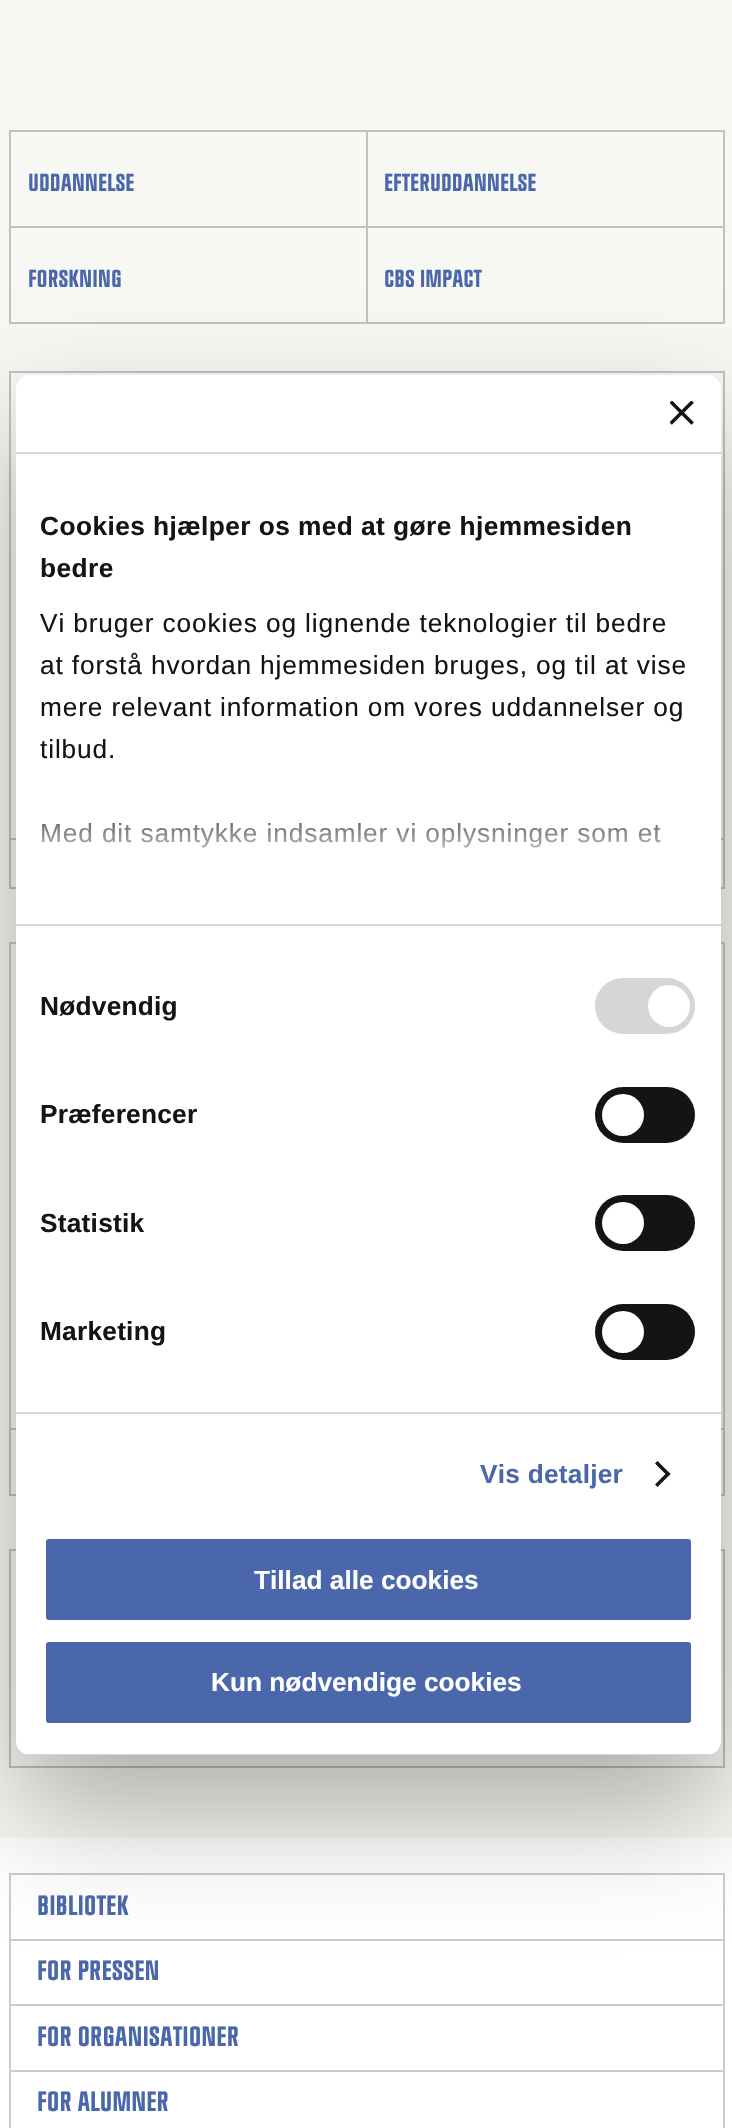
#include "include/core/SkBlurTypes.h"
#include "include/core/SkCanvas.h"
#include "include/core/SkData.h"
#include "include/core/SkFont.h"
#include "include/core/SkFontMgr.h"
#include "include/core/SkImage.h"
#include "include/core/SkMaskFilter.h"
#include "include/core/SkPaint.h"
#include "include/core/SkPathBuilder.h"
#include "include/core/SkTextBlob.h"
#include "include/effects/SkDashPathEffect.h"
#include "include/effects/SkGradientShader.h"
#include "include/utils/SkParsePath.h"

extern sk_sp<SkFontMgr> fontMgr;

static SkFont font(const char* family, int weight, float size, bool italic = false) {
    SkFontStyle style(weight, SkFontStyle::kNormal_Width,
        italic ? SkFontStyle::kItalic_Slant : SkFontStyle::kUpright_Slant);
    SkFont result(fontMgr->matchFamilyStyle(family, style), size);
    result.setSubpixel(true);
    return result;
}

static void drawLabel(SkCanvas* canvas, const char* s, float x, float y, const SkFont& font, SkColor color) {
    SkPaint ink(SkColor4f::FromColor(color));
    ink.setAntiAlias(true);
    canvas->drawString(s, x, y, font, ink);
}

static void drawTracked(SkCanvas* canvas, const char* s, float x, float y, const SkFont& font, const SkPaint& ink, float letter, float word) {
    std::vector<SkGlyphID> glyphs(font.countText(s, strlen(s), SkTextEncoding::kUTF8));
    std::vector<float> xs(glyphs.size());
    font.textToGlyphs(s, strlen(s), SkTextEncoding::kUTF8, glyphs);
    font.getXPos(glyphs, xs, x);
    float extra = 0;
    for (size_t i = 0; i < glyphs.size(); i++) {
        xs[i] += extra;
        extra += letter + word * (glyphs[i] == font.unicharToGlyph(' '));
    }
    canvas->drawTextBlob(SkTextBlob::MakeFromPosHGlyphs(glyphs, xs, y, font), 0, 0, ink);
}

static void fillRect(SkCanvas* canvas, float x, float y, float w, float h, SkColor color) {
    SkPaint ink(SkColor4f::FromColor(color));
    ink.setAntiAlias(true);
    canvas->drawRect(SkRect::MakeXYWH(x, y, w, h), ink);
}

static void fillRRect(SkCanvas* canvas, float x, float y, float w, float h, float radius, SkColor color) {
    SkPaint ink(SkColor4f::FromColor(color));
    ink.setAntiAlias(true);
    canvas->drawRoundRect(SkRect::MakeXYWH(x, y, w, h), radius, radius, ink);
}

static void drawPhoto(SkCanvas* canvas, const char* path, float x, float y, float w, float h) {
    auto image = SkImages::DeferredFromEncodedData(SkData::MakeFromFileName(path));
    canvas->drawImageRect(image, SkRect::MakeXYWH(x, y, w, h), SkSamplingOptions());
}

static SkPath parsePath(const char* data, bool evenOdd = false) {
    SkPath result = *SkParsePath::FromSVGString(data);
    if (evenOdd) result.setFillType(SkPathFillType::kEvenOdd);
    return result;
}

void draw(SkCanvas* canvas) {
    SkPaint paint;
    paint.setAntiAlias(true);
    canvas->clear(0xFFF7F7F3);
    paint.setStroke(true);
    paint.setStrokeWidth(2);
    paint.setColor(0xFFC1C1C1);
    canvas->drawRect(SkRect::MakeXYWH(10, 131, 714, 192), paint);
    fillRect(canvas, 366, 131, 2, 95, 0xFFC1C1C1);
    SkFont font1 = font("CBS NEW", 700, 24.5f);
    drawLabel(canvas, "UDDANNELSE", 28, 191, font1, 0xFF4967AA);
    drawLabel(canvas, "EFTERUDDANNELSE", 384, 191, font1, 0xFF4967AA);
    fillRect(canvas, 11, 226, 712, 2, 0xFFC1C1C1);
    fillRect(canvas, 366, 226, 2, 96, 0xFFC1C1C1);
    drawLabel(canvas, "FORSKNING", 28, 287, font1, 0xFF4967AA);
    drawLabel(canvas, "CBS IMPACT", 384, 287, font1, 0xFF4967AA);
    canvas->drawRect(SkRect::MakeXYWH(10, 372, 714, 516), paint);
    fillRect(canvas, 11, 838, 712, 2, 0xFFC1C1C1);
    fillRect(canvas, 9, 942, 716, 2, 0xFFC8C8C8);
    fillRect(canvas, 9, 942, 2, 486, 0xFFC8C8C8);
    fillRect(canvas, 723, 943, 2, 485, 0xFFC8C8C8);
    canvas->drawRect(SkRect::MakeXYWH(10, 1429, 714, 66), paint);
    canvas->drawRect(SkRect::MakeXYWH(10, 1550, 714, 217), paint);
    fillRect(canvas, 0, 1838, 732, 290, 0xFFFFFFFF);
    fillRect(canvas, 723, 1873, 2, 255, 0xFFCCCCCC);
    fillRect(canvas, 9, 1873, 2, 255, 0xFFCCCCCC);
    fillRect(canvas, 11, 1873, 712, 2, 0xFFCCCCCC);
    fillRect(canvas, 11, 1939, 712, 2, 0xFFCCCCCC);
    paint.setStroke(false);
    paint.setColor(0x4D000000);
    paint.setMaskFilter(SkMaskFilter::MakeBlur(kNormal_SkBlurStyle, 59.5f));
    canvas->drawRoundRect(SkRect::MakeXYWH(16, 431, 705, 1380), 14, 14, paint);
    paint.setMaskFilter(nullptr);
    fillRRect(canvas, 16, 375, 705, 1380, 14, 0xFFFFFFFF);
    fillRect(canvas, 16, 452, 705, 2, 0xFFD6D6D6);
    drawPhoto(canvas, "assets/img1.png", 670, 401, 24, 24);
    fillRect(canvas, 16, 924, 705, 2, 0xFFD6D6D6);
    SkFont font2 = font("Liberation Sans", 700, 26.25f);
    paint.setColor(0xFF141414);
    drawTracked(canvas, "Cookies hjælper os med at gøre hjemmesiden", 40, 535, font2, paint, 0.45f, 0);
    drawTracked(canvas, "bedre", 40, 577, font2, paint, 0.45f, 0);
    SkFont font3 = font("Liberation Sans", 400, 26.25f);
    drawTracked(canvas, "Vi bruger cookies og lignende teknologier til bedre", 40, 632, font3, paint, 0.88f, 0);
    drawTracked(canvas, "at forstå hvordan hjemmesiden bruges, og til at vise", 40, 674, font3, paint, 0.88f, 0);
    drawTracked(canvas, "mere relevant information om vores uddannelser og", 40, 716, font3, paint, 0.88f, 0);
    drawTracked(canvas, "tilbud.", 40, 758, font3, paint, 0.88f, 0);
    drawTracked(canvas, "Med dit samtykke indsamler vi oplysninger som et", 40, 842, font3, paint, 0.88f, 0);
    {
        const SkColor colors[] = {0xFFFFFFFF, 0xCCFFFFFF, 0x00FFFFFF};
        const float stops[] = {0, 0.5f, 1};
        const SkPoint ends[] = {{356, 924}, {356, 792}};
        paint.setShader(SkGradientShader::MakeLinear(ends, colors, stops, 3, SkTileMode::kClamp));
        paint.setAlpha(255);
    }
    canvas->drawRect(SkRect::MakeXYWH(42, 823, 619, 25), paint);
    fillRect(canvas, 16, 1412, 705, 2, 0xFFD6D6D6);
    paint.setShader(nullptr);
    paint.setColor(0xFF141414);
    drawTracked(canvas, "Nødvendig", 40, 1015, font2, paint, 0.25f, 0);
    fillRRect(canvas, 595, 978, 100, 56, 28, 0xFFD6D6D6);
    paint.setColor(0xFFFFFFFF);
    canvas->drawCircle(669, 1006, 21, paint);
    paint.setColor(0xFF141414);
    drawTracked(canvas, "Præferencer", 40, 1123, font2, paint, 0.25f, 0);
    fillRRect(canvas, 595, 1087, 100, 56, 28, 0xFF141414);
    paint.setColor(0xFFFFFFFF);
    canvas->drawCircle(623, 1115, 21, paint);
    paint.setColor(0xFF141414);
    drawTracked(canvas, "Statistik", 40, 1232, font2, paint, 0.25f, 0);
    fillRRect(canvas, 595, 1195, 100, 56, 28, 0xFF141414);
    paint.setColor(0xFFFFFFFF);
    canvas->drawCircle(623, 1223, 21, paint);
    paint.setColor(0xFF141414);
    drawTracked(canvas, "Marketing", 40, 1340, font2, paint, 0.25f, 0);
    fillRRect(canvas, 595, 1304, 100, 56, 28, 0xFF141414);
    paint.setColor(0xFFFFFFFF);
    canvas->drawCircle(623, 1332, 21, paint);
    paint.setColor(0xFF4967AA);
    drawTracked(canvas, "Vis detaljer", 480, 1483, font2, paint, 0.25f, 0);
    paint.setColor(0xFF141414);
    canvas->drawPath(parsePath("M657.5 1461L670.5 1474L668 1476.5L655 1463.5Z"), paint);
    canvas->drawPath(parsePath("M668 1471.5L670.5 1474L657.5 1487L655 1484.5Z"), paint);
    canvas->save();
    canvas->clipPath(parsePath("M30 375H707C714.5 375 721 381.5 721 389V1741C721 1748.5 714.5 1755 707 1755H30C22.5 1755 16 1748.5 16 1741V389C16 381.5 22.5 375 30 375Z"), true);
    fillRect(canvas, 25, 1754, 687, 1, 0xFFD6D6D6);
    canvas->restore();
    paint.setColor(0xFF4967AA);
    canvas->drawRoundRect(SkRect::MakeXYWH(44, 1537, 649, 85), 5, 5, paint);
    paint.setStroke(true);
    paint.setStrokeWidth(4);
    paint.setColor(0xFFFFFFFF);
    canvas->drawRoundRect(SkRect::MakeXYWH(44, 1537, 649, 85), 5, 5, paint);
    drawLabel(canvas, "Tillad alle cookies", 254, 1589, font2, 0xFFFFFFFF);
    paint.setStroke(false);
    paint.setColor(0xFF4967AA);
    canvas->drawRoundRect(SkRect::MakeXYWH(44, 1640, 649, 85), 5, 5, paint);
    paint.setStroke(true);
    paint.setColor(0xFFFFFFFF);
    canvas->drawRoundRect(SkRect::MakeXYWH(44, 1640, 649, 85), 5, 5, paint);
    drawLabel(canvas, "Kun nødvendige cookies", 211, 1691, font2, 0xFFFFFFFF);
    SkFont font4 = font("CBS NEW", 700, 28);
    drawLabel(canvas, "BIBLIOTEK", 37, 1915, font4, 0xFF4967AA);
    drawLabel(canvas, "FOR PRESSEN", 37, 1980, font4, 0xFF4967AA);
    fillRect(canvas, 11, 2004, 712, 2, 0xFFCCCCCC);
    drawLabel(canvas, "FOR ORGANISATIONER", 37, 2046, font4, 0xFF4967AA);
    fillRect(canvas, 11, 2070, 712, 2, 0xFFCCCCCC);
    drawLabel(canvas, "FOR ALUMNER", 37, 2111, font4, 0xFF4967AA);
}
